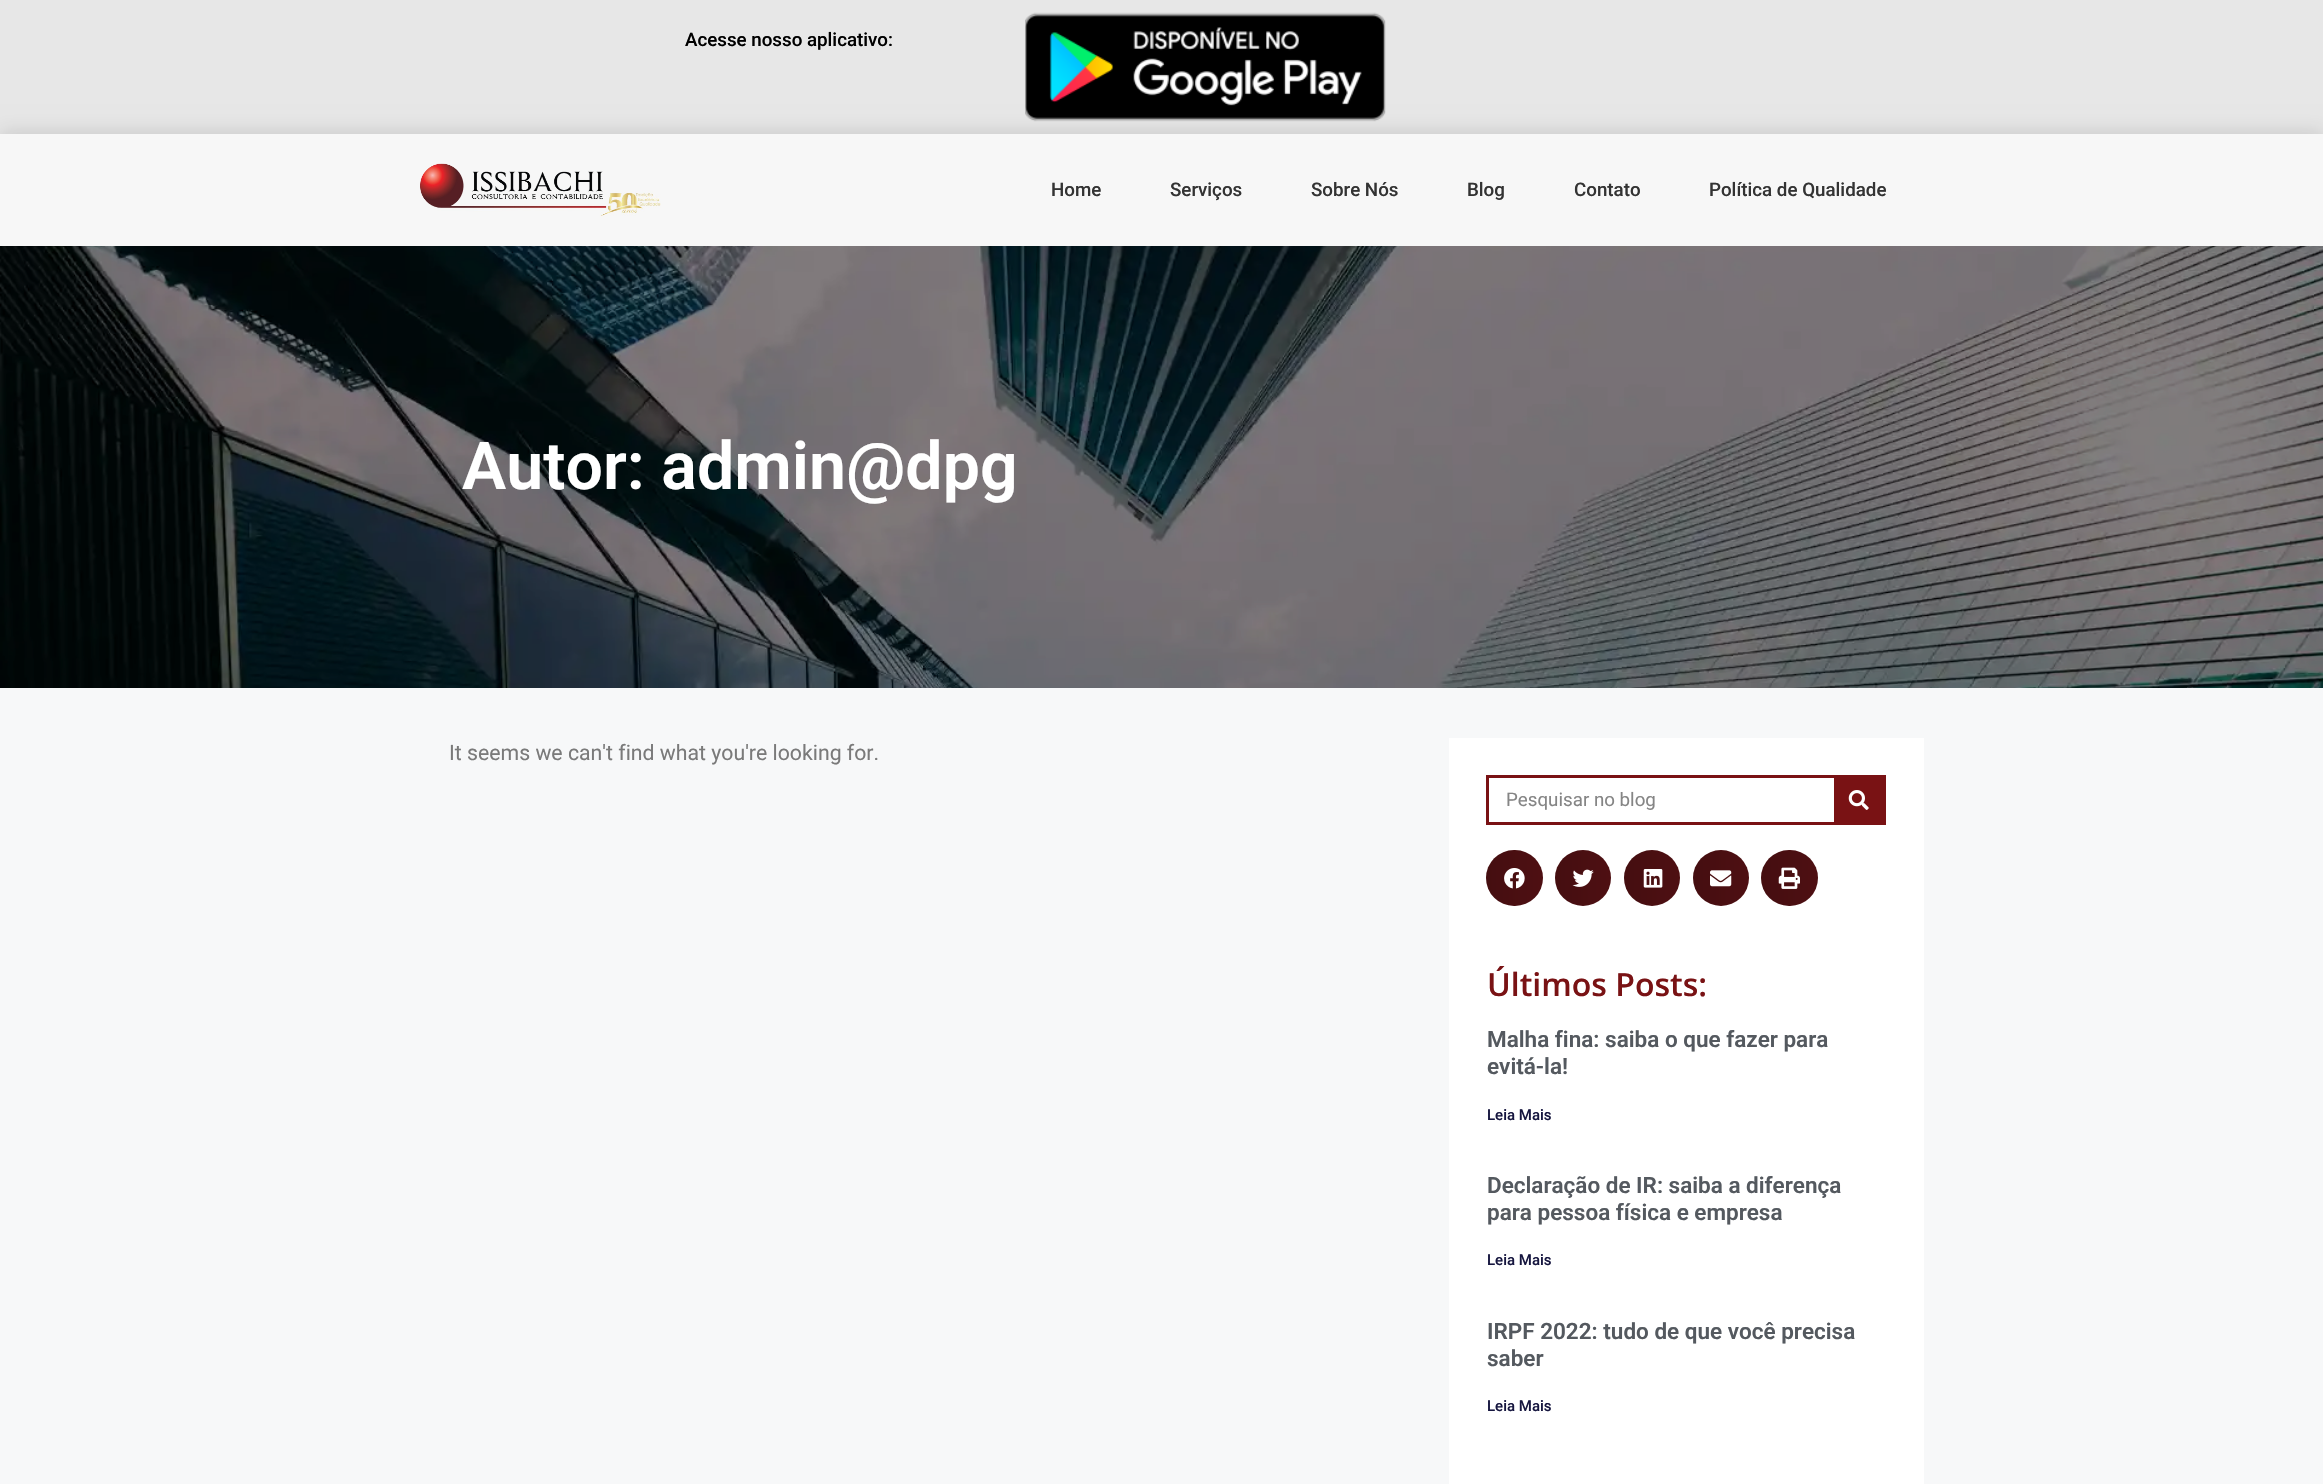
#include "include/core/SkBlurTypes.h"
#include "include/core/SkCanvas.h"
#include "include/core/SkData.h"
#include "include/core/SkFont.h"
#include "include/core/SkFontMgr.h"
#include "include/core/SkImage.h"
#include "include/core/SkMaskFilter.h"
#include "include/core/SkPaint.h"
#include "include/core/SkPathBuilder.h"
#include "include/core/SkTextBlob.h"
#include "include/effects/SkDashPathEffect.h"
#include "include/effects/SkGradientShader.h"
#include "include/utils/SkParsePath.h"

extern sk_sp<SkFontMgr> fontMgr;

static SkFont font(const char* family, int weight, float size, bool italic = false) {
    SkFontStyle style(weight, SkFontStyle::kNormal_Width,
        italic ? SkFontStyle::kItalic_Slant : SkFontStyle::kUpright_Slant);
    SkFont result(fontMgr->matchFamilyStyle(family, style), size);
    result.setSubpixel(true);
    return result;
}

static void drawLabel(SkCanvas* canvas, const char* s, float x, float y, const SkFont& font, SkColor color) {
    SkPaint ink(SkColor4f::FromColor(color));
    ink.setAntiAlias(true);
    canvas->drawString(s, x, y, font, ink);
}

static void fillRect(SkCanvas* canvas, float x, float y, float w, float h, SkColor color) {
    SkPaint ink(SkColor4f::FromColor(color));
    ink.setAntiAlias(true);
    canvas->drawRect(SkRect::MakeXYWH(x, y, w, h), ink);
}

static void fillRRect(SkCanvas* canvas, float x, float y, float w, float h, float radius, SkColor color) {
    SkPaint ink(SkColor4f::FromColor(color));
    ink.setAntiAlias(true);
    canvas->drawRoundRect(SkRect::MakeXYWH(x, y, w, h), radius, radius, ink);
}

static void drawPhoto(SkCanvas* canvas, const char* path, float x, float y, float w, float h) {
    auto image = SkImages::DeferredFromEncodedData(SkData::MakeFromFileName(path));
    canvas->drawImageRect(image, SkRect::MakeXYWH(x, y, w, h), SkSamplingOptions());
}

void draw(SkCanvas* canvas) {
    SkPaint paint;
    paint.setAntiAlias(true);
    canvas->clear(0xFFF7F8F9);
    fillRect(canvas, 0, 0, 2323, 134, 0xFFE7E7E7);
    SkFont font1 = font("Roboto", 500, 18.75f);
    drawLabel(canvas, "Acesse nosso aplicativo:", 685, 46, font1, 0xFF000000);
    drawPhoto(canvas, "assets/img1.png", 1025, 12, 361, 110);
    paint.setColor(0x1F000000);
    paint.setMaskFilter(SkMaskFilter::MakeBlur(kNormal_SkBlurStyle, 9));
    canvas->drawRect(SkRect::MakeXYWH(0, 131, 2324, 113), paint);
    paint.setMaskFilter(nullptr);
    fillRect(canvas, 0, 134, 2323, 112, 0xFFF7F7F7);
    drawPhoto(canvas, "assets/img2.png", 420, 163, 241, 54);
    drawLabel(canvas, "Home", 1051, 196, font1, 0xFF333333);
    drawLabel(canvas, "Serviços", 1170, 196, font1, 0xFF333333);
    drawLabel(canvas, "Sobre Nós", 1311, 196, font1, 0xFF333333);
    drawLabel(canvas, "Blog", 1467, 196, font1, 0xFF333333);
    drawLabel(canvas, "Contato", 1574, 196, font1, 0xFF333333);
    drawLabel(canvas, "Política de Qualidade", 1709, 196, font1, 0xFF333333);
    drawPhoto(canvas, "assets/img3.png", 0, 246, 2323, 442);
    SkFont font2 = font("Roboto", 600, 66.25f);
    drawLabel(canvas, "Autor: admin@dpg", 462, 489, font2, 0xFFFFFFFF);
    SkFont font3 = font("Roboto", 400, 21.25f);
    drawLabel(canvas, "It seems we can't find what you're looking for.", 449, 760, font3, 0xFF7A7A7A);
    fillRect(canvas, 1449, 738, 475, 746, 0xFFFFFFFF);
    paint.setStroke(true);
    paint.setStrokeWidth(3);
    paint.setColor(0xFF791214);
    canvas->drawRect(SkRect::MakeXYWH(1487.5f, 776.5f, 397, 47), paint);
    SkFont font4 = font("Roboto", 400, 18.75f);
    drawLabel(canvas, "Pesquisar no blog", 1506, 806, font4, 0xFF858585);
    fillRect(canvas, 1834, 778, 49, 44, 0xFF791214);
    drawPhoto(canvas, "assets/img4.png", 1848, 790, 21, 20);
    fillRRect(canvas, 1486, 850, 57, 56, 28, 0xFF4E0F12);
    paint.setStroke(false);
    {
        const SkColor colors[] = {0x1F000000, 0x00000000};
        const float stops[] = {0, 1};
        const SkPoint ends[] = {{1486, 878}, {1543, 878}};
        paint.setShader(SkGradientShader::MakeLinear(ends, colors, stops, 2, SkTileMode::kClamp));
        paint.setAlpha(255);
    }
    canvas->drawRoundRect(SkRect::MakeXYWH(1486, 850, 57, 56), 28, 28, paint);
    drawPhoto(canvas, "assets/img5.png", 1504, 868, 21, 21);
    paint.setShader(nullptr);
    paint.setColor(0xFF4E0F12);
    canvas->drawCircle(1583, 878, 28, paint);
    {
        const SkColor colors[] = {0x1F000000, 0x00000000};
        const float stops[] = {0, 1};
        const SkPoint ends[] = {{1555, 878}, {1611, 878}};
        paint.setShader(SkGradientShader::MakeLinear(ends, colors, stops, 2, SkTileMode::kClamp));
        paint.setAlpha(255);
    }
    canvas->drawCircle(1583, 878, 28, paint);
    drawPhoto(canvas, "assets/img6.png", 1572, 869, 22, 18);
    paint.setShader(nullptr);
    paint.setColor(0xFF4E0F12);
    canvas->drawCircle(1652, 878, 28, paint);
    {
        const SkColor colors[] = {0x1F000000, 0x00000000};
        const float stops[] = {0, 1};
        const SkPoint ends[] = {{1624, 878}, {1680, 878}};
        paint.setShader(SkGradientShader::MakeLinear(ends, colors, stops, 2, SkTileMode::kClamp));
        paint.setAlpha(255);
    }
    canvas->drawCircle(1652, 878, 28, paint);
    drawPhoto(canvas, "assets/img7.png", 1643, 869, 20, 19);
    paint.setShader(nullptr);
    paint.setColor(0xFF4E0F12);
    canvas->drawCircle(1721, 878, 28, paint);
    {
        const SkColor colors[] = {0x1F000000, 0x00000000};
        const float stops[] = {0, 1};
        const SkPoint ends[] = {{1693, 878}, {1749, 878}};
        paint.setShader(SkGradientShader::MakeLinear(ends, colors, stops, 2, SkTileMode::kClamp));
        paint.setAlpha(255);
    }
    canvas->drawCircle(1721, 878, 28, paint);
    drawPhoto(canvas, "assets/img8.png", 1710, 870, 22, 17);
    fillRRect(canvas, 1761, 850, 57, 56, 28, 0xFF4E0F12);
    {
        const SkColor colors[] = {0x1F000000, 0x00000000};
        const float stops[] = {0, 1};
        const SkPoint ends[] = {{1761, 878}, {1818, 878}};
        paint.setShader(SkGradientShader::MakeLinear(ends, colors, stops, 2, SkTileMode::kClamp));
        paint.setAlpha(255);
    }
    canvas->drawRoundRect(SkRect::MakeXYWH(1761, 850, 57, 56), 28, 28, paint);
    drawPhoto(canvas, "assets/img9.png", 1778, 867, 22, 22);
    SkFont font5 = font("Open Sans", 600, 32);
    drawLabel(canvas, "Últimos Posts:", 1487, 996, font5, 0xFF791214);
    SkFont font6 = font("Roboto", 600, 22.5f);
    drawLabel(canvas, "Malha fina: saiba o que fazer para", 1487, 1047, font6, 0xFF54595F);
    drawLabel(canvas, "evitá-la!", 1487, 1074, font6, 0xFF54595F);
    SkFont font7 = font("Roboto", 500, 15);
    drawLabel(canvas, "Leia Mais", 1487, 1120, font7, 0xFF16163F);
    drawLabel(canvas, "Declaração de IR: saiba a diferença", 1487, 1193, font6, 0xFF54595F);
    drawLabel(canvas, "para pessoa física e empresa", 1487, 1220, font6, 0xFF54595F);
    drawLabel(canvas, "Leia Mais", 1487, 1265, font7, 0xFF16163F);
    drawLabel(canvas, "IRPF 2022: tudo de que você precisa", 1487, 1339, font6, 0xFF54595F);
    drawLabel(canvas, "saber", 1487, 1366, font6, 0xFF54595F);
    drawLabel(canvas, "Leia Mais", 1487, 1411, font7, 0xFF16163F);
}
